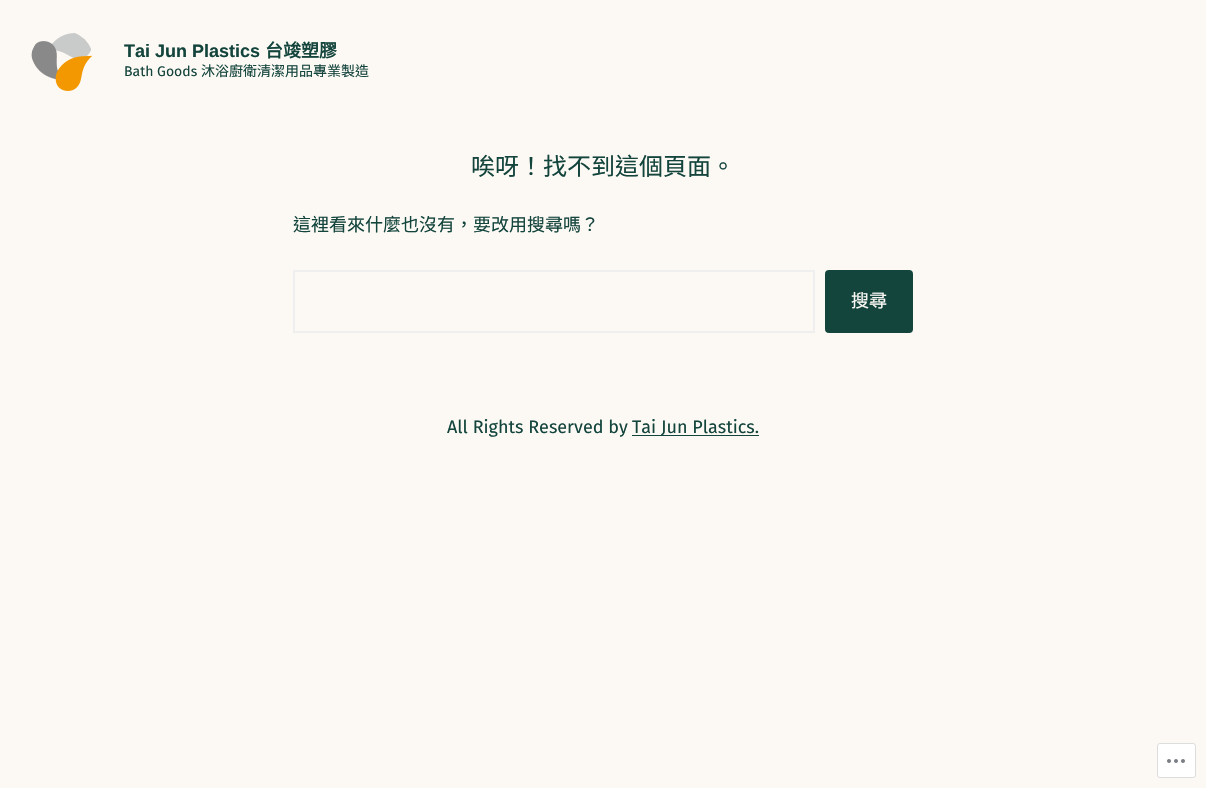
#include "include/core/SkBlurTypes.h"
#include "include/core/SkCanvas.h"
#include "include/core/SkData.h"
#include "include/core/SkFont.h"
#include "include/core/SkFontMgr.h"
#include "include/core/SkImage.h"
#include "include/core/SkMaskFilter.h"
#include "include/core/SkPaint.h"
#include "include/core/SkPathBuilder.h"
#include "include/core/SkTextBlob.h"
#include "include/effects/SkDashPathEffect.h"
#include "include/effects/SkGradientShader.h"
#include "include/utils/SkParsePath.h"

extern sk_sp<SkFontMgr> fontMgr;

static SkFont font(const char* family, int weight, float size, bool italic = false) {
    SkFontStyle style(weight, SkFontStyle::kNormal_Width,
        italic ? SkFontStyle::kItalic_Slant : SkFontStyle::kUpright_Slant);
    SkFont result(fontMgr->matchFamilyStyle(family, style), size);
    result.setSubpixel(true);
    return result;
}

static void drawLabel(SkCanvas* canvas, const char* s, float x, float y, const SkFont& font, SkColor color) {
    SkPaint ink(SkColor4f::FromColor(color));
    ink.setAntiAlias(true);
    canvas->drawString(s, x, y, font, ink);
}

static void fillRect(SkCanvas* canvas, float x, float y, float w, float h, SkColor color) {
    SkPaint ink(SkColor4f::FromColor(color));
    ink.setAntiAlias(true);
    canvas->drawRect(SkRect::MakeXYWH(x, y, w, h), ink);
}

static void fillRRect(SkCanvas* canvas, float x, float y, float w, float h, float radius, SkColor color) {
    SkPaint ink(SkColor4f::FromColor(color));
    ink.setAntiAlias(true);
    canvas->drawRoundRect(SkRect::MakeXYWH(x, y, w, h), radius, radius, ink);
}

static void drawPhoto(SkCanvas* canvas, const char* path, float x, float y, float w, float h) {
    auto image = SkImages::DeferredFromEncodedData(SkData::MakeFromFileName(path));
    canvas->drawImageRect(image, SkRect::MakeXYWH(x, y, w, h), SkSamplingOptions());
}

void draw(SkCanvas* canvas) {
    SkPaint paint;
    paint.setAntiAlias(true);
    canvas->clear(0xFFFCF9F4);
    drawPhoto(canvas, "assets/img1.png", 31, 33, 62, 58);
    SkFont font1 = font("Liberation Sans", 700, 18);
    drawLabel(canvas, "Tai Jun Plastics", 124, 57, font1, 0xFF14453D);
    SkFont font2 = font("Noto Sans CJK TC", 700, 18);
    drawLabel(canvas, "台竣塑膠", 265, 57, font2, 0xFF14453D);
    SkFont font3 = font("Fira Sans", 400, 14);
    drawLabel(canvas, "Bath Goods", 124, 76, font3, 0xFF14453D);
    SkFont font4 = font("Noto Sans CJK TC", 400, 14);
    drawLabel(canvas, "沐浴廚衛清潔用品專業製造", 201, 76, font4, 0xFF14453D);
    SkFont font5 = font("Noto Sans CJK TC", 400, 24);
    drawLabel(canvas, "唉呀！找不到這個頁面。", 471, 175, font5, 0xFF14453D);
    SkFont font6 = font("Noto Sans CJK TC", 400, 18);
    drawLabel(canvas, "這裡看來什麼也沒有，要改用搜尋嗎？", 293, 231, font6, 0xFF14453D);
    paint.setStroke(true);
    paint.setStrokeWidth(2);
    paint.setColor(0xFFEFEFEF);
    canvas->drawRect(SkRect::MakeXYWH(294, 271, 520, 61), paint);
    fillRRect(canvas, 825, 270, 88, 63, 4, 0xFF14453D);
    drawLabel(canvas, "搜尋", 851, 307, font6, 0xFFFCF9F4);
    SkFont font7 = font("Fira Sans", 400, 18);
    drawLabel(canvas, "All Rights Reserved by", 447, 433, font7, 0xFF14453D);
    fillRect(canvas, 632, 435, 127, 1, 0xFF14453D);
    drawLabel(canvas, "Tai Jun Plastics.", 632, 433, font7, 0xFF14453D);
    paint.setStroke(false);
    paint.setColor(0xFFFFFFFF);
    canvas->drawRoundRect(SkRect::MakeXYWH(1157.5f, 743.5f, 38, 34), 2.5f, 2.5f, paint);
    paint.setStroke(true);
    paint.setStrokeWidth(1);
    paint.setColor(0xFFDDDDDE);
    canvas->drawRoundRect(SkRect::MakeXYWH(1157.5f, 743.5f, 38, 34), 2.5f, 2.5f, paint);
    drawPhoto(canvas, "assets/img2.png", 1167, 759, 18, 4);
}
